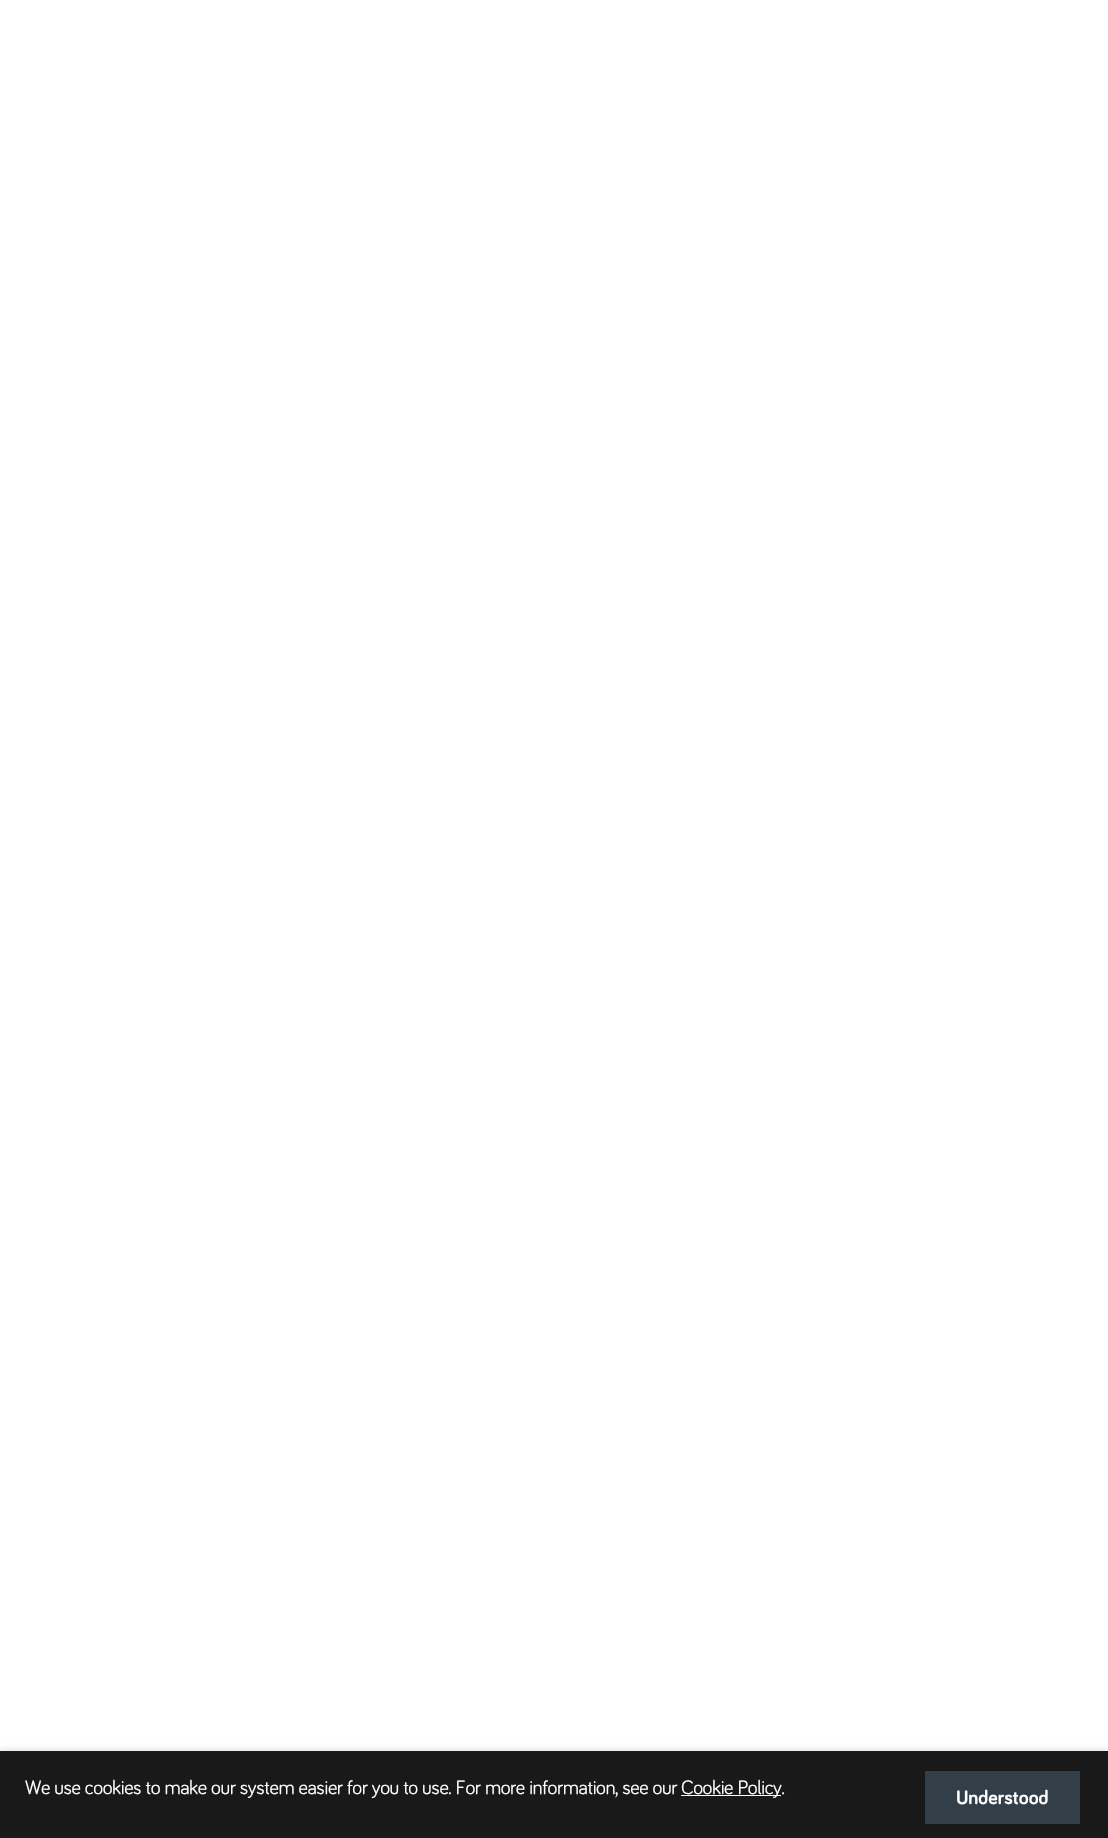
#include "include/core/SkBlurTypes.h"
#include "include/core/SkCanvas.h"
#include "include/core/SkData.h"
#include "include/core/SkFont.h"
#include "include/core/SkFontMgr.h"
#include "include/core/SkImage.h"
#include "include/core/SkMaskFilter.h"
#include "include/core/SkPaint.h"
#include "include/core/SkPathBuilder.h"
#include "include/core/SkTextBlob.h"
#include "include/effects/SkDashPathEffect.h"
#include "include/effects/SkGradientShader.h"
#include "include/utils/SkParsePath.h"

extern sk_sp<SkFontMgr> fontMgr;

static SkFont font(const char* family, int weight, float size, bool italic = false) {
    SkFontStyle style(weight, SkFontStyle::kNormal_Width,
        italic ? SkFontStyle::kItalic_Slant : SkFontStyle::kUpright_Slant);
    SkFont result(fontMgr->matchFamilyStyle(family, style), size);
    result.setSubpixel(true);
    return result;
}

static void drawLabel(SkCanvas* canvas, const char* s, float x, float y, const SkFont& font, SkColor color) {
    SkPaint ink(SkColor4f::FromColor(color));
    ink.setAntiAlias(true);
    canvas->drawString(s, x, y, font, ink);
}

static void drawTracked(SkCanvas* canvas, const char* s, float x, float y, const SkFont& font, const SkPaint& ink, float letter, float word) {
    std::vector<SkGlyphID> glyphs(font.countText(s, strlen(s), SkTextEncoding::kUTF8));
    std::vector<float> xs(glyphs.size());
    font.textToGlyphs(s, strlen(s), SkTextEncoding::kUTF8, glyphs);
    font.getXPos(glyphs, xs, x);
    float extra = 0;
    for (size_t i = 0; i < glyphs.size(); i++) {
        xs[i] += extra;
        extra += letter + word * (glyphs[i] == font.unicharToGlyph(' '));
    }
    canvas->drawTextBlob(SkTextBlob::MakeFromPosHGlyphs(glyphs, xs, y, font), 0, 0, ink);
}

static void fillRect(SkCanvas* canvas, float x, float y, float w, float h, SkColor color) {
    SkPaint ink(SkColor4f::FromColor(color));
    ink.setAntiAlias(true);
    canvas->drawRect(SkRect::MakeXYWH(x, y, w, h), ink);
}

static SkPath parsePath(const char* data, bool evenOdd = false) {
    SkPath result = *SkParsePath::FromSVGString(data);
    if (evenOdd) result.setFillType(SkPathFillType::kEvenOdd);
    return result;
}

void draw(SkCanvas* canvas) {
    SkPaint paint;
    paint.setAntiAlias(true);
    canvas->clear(0xFFFFFFFF);
    canvas->save();
    canvas->clipPath(parsePath("M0 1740H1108V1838H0ZM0 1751H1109V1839H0Z", true), true);
    paint.setColor(0x1A000000);
    paint.setMaskFilter(SkMaskFilter::MakeBlur(kNormal_SkBlurStyle, 2.5f));
    canvas->drawRect(SkRect::MakeXYWH(0, 1749, 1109, 87), paint);
    paint.setMaskFilter(nullptr);
    canvas->restore();
    fillRect(canvas, 0, 1751, 1108, 87, 0xE6000000);
    SkFont font1 = font("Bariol", 400, 20);
    paint.setColor(0xFFFFFFFF);
    drawTracked(canvas, "We use cookies to make our system easier for you to use. For more information, see our", 25, 1794, font1, paint, -0.4f, 0);
    fillRect(canvas, 681, 1795, 100, 1, 0xFFFFFFFF);
    drawTracked(canvas, "Cookie Policy.", 681, 1794, font1, paint, -0.4f, 0);
    fillRect(canvas, 925, 1771, 155, 53, 0xFF333F48);
    SkFont font2 = font("Bariol", 700, 20);
    drawLabel(canvas, "Understood", 956, 1804, font2, 0xFFFFFFFF);
}
